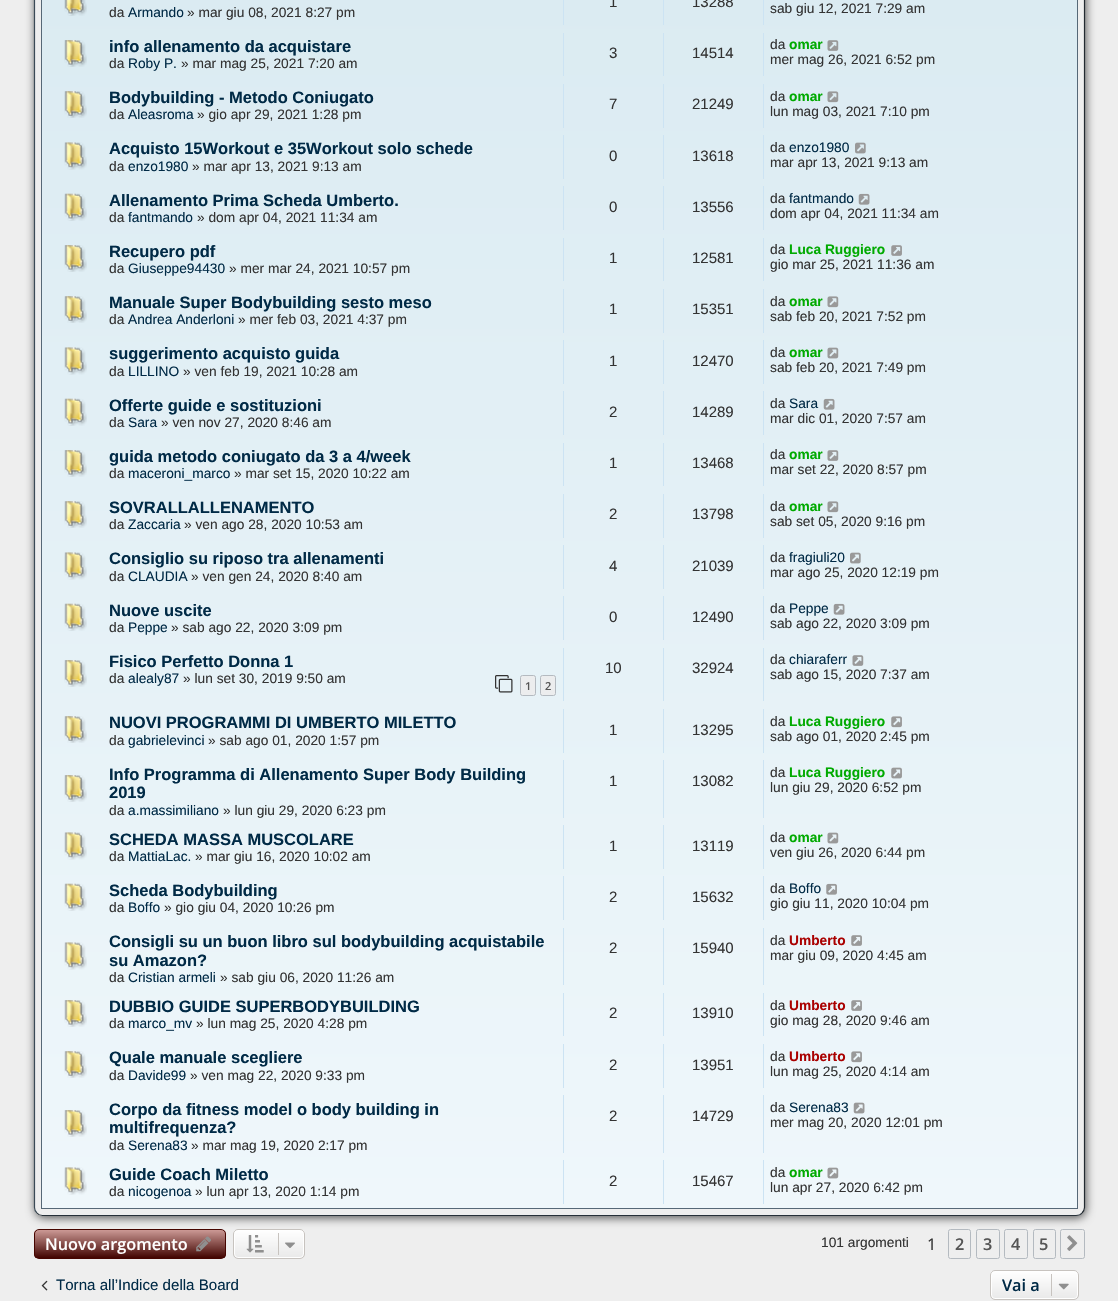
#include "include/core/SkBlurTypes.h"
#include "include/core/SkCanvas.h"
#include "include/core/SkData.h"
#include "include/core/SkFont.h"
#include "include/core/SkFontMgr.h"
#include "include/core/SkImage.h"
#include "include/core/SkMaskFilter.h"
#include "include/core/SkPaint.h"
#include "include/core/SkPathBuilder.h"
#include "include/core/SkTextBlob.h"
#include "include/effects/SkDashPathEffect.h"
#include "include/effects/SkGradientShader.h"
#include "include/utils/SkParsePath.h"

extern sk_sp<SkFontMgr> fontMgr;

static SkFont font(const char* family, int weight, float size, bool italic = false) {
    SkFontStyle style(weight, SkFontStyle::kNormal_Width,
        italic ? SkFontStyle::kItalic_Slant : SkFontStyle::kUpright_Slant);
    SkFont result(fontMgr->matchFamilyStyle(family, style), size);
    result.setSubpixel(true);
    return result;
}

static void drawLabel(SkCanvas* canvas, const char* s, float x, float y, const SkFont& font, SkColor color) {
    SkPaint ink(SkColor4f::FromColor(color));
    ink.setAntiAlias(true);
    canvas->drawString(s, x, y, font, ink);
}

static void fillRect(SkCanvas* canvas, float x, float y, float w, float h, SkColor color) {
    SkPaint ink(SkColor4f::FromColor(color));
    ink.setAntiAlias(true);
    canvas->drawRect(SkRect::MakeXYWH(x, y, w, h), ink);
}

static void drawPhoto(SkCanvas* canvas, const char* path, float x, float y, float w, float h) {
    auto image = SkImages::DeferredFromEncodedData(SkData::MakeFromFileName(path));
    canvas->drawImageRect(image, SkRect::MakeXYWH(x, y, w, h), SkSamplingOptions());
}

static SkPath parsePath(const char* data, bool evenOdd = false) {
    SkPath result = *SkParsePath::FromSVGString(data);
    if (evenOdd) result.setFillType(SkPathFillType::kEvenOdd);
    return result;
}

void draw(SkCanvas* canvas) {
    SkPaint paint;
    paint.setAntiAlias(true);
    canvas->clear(0xFFEEEEEE);
    canvas->save();
    canvas->clipPath(parsePath("M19 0H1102V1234H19ZM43-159H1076C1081-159 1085-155 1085-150V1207C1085 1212 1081 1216 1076 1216H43C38 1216 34 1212 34 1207V-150C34-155 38-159 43-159Z", true), true);
    paint.setColor(0xFF555555);
    paint.setMaskFilter(SkMaskFilter::MakeBlur(kNormal_SkBlurStyle, 5));
    canvas->drawRoundRect(SkRect::MakeXYWH(35, -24, 1051, 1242), 9, 9, paint);
    paint.setMaskFilter(nullptr);
    canvas->restore();
    paint.setStroke(true);
    paint.setStrokeWidth(1.2f);
    paint.setColor(0xFF212930);
    canvas->drawPath(parsePath("M1082-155.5C1083.5-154 1084.5-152 1084.5-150V1207.5C1084.5 1209.5 1083.5 1211.5 1082 1213"), paint);
    paint.setColor(0xFF263038);
    canvas->drawPath(parsePath("M1082 1213C1080.5 1215 1078.5 1215.5 1076 1215.5H42.5C40.5 1215.5 38.5 1215 37 1213"), paint);
    paint.setColor(0xFF3A4955);
    canvas->drawPath(parsePath("M37 1213C35 1211.5 34.5 1209.5 34.5 1207.5V-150C34.5-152 35-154 37-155.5"), paint);
    paint.setStroke(false);
    {
        const SkColor colors[] = {0xFFD9EAF1, 0xFFEFF7FB};
        const float stops[] = {0, 1};
        const SkPoint ends[] = {{559, -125}, {559, 1208}};
        paint.setShader(SkGradientShader::MakeLinear(ends, colors, stops, 2, SkTileMode::kClamp));
        paint.setAlpha(255);
    }
    canvas->drawRect(SkRect::MakeXYWH(42, 0, 1035, 1208), paint);
    paint.setStroke(true);
    paint.setStrokeWidth(1);
    paint.setShader(nullptr);
    paint.setColor(0xFF566877);
    canvas->drawRect(SkRect::MakeXYWH(41.5f, -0.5f, 1036, 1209), paint);
    drawPhoto(canvas, "assets/img1.png", 64, 0, 23, 16);
    SkFont font1 = font("Liberation Sans", 400, 13.75f);
    drawLabel(canvas, "da", 109, 17, font1, 0xFF333333);
    drawLabel(canvas, "Armando", 128, 17, font1, 0xFF002A46);
    drawLabel(canvas, "» mar giu 08, 2021 8:27 pm", 187, 17, font1, 0xFF333333);
    fillRect(canvas, 563, 0, 1, 25, 0xFFCCE3F3);
    SkFont font2 = font("Liberation Sans", 400, 15);
    drawLabel(canvas, "1", 609, 7, font2, 0xFF333333);
    fillRect(canvas, 663, 0, 1, 25, 0xFFCCE3F3);
    drawLabel(canvas, "13288", 692, 7, font2, 0xFF333333);
    fillRect(canvas, 763, 0, 1, 25, 0xFFCCE3F3);
    drawLabel(canvas, "sab giu 12, 2021 7:29 am", 770, 13, font1, 0xFF333333);
    drawPhoto(canvas, "assets/img2.png", 64, 40, 23, 27);
    SkFont font3 = font("Liberation Sans", 700, 16.5f);
    drawLabel(canvas, "info allenamento da acquistare", 109, 52, font3, 0xFF002A46);
    drawLabel(canvas, "da", 109, 68, font1, 0xFF333333);
    drawLabel(canvas, "Roby P.", 128, 68, font1, 0xFF002A46);
    drawLabel(canvas, "» mar mag 25, 2021 7:20 am", 181, 68, font1, 0xFF333333);
    fillRect(canvas, 563, 33, 1, 43, 0xFFCCE3F3);
    drawLabel(canvas, "3", 609, 58, font2, 0xFF333333);
    fillRect(canvas, 663, 33, 1, 43, 0xFFCCE3F3);
    drawLabel(canvas, "14514", 692, 58, font2, 0xFF333333);
    fillRect(canvas, 763, 33, 1, 43, 0xFFCCE3F3);
    drawLabel(canvas, "da", 770, 49, font1, 0xFF333333);
    SkFont font4 = font("Liberation Sans", 700, 13.75f);
    drawLabel(canvas, "omar", 789, 49, font4, 0xFF00AA00);
    drawPhoto(canvas, "assets/img3.png", 827, 40, 12, 11);
    drawLabel(canvas, "mer mag 26, 2021 6:52 pm", 770, 64, font1, 0xFF333333);
    drawPhoto(canvas, "assets/img4.png", 64, 91, 23, 27);
    drawLabel(canvas, "Bodybuilding - Metodo Coniugato", 109, 103, font3, 0xFF002A46);
    drawLabel(canvas, "da", 109, 119, font1, 0xFF333333);
    drawLabel(canvas, "Aleasroma", 128, 119, font1, 0xFF002A46);
    drawLabel(canvas, "» gio apr 29, 2021 1:28 pm", 197, 119, font1, 0xFF333333);
    fillRect(canvas, 563, 84, 1, 44, 0xFFCCE3F3);
    drawLabel(canvas, "7", 609, 109, font2, 0xFF333333);
    fillRect(canvas, 663, 84, 1, 44, 0xFFCCE3F3);
    drawLabel(canvas, "21249", 692, 109, font2, 0xFF333333);
    fillRect(canvas, 763, 84, 1, 44, 0xFFCCE3F3);
    drawLabel(canvas, "da", 770, 101, font1, 0xFF333333);
    drawLabel(canvas, "omar", 789, 101, font4, 0xFF00AA00);
    drawPhoto(canvas, "assets/img5.png", 827, 91, 12, 12);
    drawLabel(canvas, "lun mag 03, 2021 7:10 pm", 770, 116, font1, 0xFF333333);
    drawPhoto(canvas, "assets/img6.png", 64, 142, 23, 28);
    drawLabel(canvas, "Acquisto 15Workout e 35Workout solo schede", 109, 154, font3, 0xFF002A46);
    drawLabel(canvas, "da", 109, 171, font1, 0xFF333333);
    drawLabel(canvas, "enzo1980", 128, 171, font1, 0xFF002A46);
    drawLabel(canvas, "» mar apr 13, 2021 9:13 am", 192, 171, font1, 0xFF333333);
    fillRect(canvas, 563, 135, 1, 44, 0xFFCCE3F3);
    drawLabel(canvas, "0", 609, 161, font2, 0xFF333333);
    fillRect(canvas, 663, 135, 1, 44, 0xFFCCE3F3);
    drawLabel(canvas, "13618", 692, 161, font2, 0xFF333333);
    fillRect(canvas, 763, 135, 1, 44, 0xFFCCE3F3);
    drawLabel(canvas, "da", 770, 152, font1, 0xFF333333);
    drawLabel(canvas, "enzo1980", 789, 152, font1, 0xFF002A46);
    drawPhoto(canvas, "assets/img7.png", 855, 142, 11, 12);
    drawLabel(canvas, "mar apr 13, 2021 9:13 am", 770, 167, font1, 0xFF333333);
    drawPhoto(canvas, "assets/img8.png", 64, 193, 23, 28);
    drawLabel(canvas, "Allenamento Prima Scheda Umberto.", 109, 206, font3, 0xFF002A46);
    drawLabel(canvas, "da", 109, 222, font1, 0xFF333333);
    drawLabel(canvas, "fantmando", 128, 222, font1, 0xFF002A46);
    drawLabel(canvas, "» dom apr 04, 2021 11:34 am", 197, 222, font1, 0xFF333333);
    fillRect(canvas, 563, 186, 1, 44, 0xFFCCE3F3);
    drawLabel(canvas, "0", 609, 212, font2, 0xFF333333);
    fillRect(canvas, 663, 186, 1, 44, 0xFFCCE3F3);
    drawLabel(canvas, "13556", 692, 212, font2, 0xFF333333);
    fillRect(canvas, 763, 186, 1, 44, 0xFFCCE3F3);
    drawLabel(canvas, "da", 770, 203, font1, 0xFF333333);
    drawLabel(canvas, "fantmando", 789, 203, font1, 0xFF002A46);
    drawPhoto(canvas, "assets/img9.png", 858, 193, 12, 12);
    drawLabel(canvas, "dom apr 04, 2021 11:34 am", 770, 218, font1, 0xFF333333);
    drawPhoto(canvas, "assets/img10.png", 64, 245, 23, 27);
    drawLabel(canvas, "Recupero pdf", 109, 257, font3, 0xFF002A46);
    drawLabel(canvas, "da", 109, 273, font1, 0xFF333333);
    drawLabel(canvas, "Giuseppe94430", 128, 273, font1, 0xFF002A46);
    drawLabel(canvas, "» mer mar 24, 2021 10:57 pm", 229, 273, font1, 0xFF333333);
    fillRect(canvas, 563, 238, 1, 43, 0xFFCCE3F3);
    drawLabel(canvas, "1", 609, 263, font2, 0xFF333333);
    fillRect(canvas, 663, 238, 1, 43, 0xFFCCE3F3);
    drawLabel(canvas, "12581", 692, 263, font2, 0xFF333333);
    fillRect(canvas, 763, 238, 1, 43, 0xFFCCE3F3);
    drawLabel(canvas, "da", 770, 254, font1, 0xFF333333);
    drawLabel(canvas, "Luca Ruggiero", 789, 254, font4, 0xFF00AA00);
    drawPhoto(canvas, "assets/img11.png", 891, 245, 11, 11);
    drawLabel(canvas, "gio mar 25, 2021 11:36 am", 770, 269, font1, 0xFF333333);
    drawPhoto(canvas, "assets/img12.png", 64, 296, 23, 27);
    drawLabel(canvas, "Manuale Super Bodybuilding sesto meso", 109, 308, font3, 0xFF002A46);
    drawLabel(canvas, "da", 109, 324, font1, 0xFF333333);
    drawLabel(canvas, "Andrea Anderloni", 128, 324, font1, 0xFF002A46);
    drawLabel(canvas, "» mer feb 03, 2021 4:37 pm", 238, 324, font1, 0xFF333333);
    fillRect(canvas, 563, 289, 1, 44, 0xFFCCE3F3);
    drawLabel(canvas, "1", 609, 314, font2, 0xFF333333);
    fillRect(canvas, 663, 289, 1, 44, 0xFFCCE3F3);
    drawLabel(canvas, "15351", 692, 314, font2, 0xFF333333);
    fillRect(canvas, 763, 289, 1, 44, 0xFFCCE3F3);
    drawLabel(canvas, "da", 770, 306, font1, 0xFF333333);
    drawLabel(canvas, "omar", 789, 306, font4, 0xFF00AA00);
    drawPhoto(canvas, "assets/img13.png", 827, 296, 12, 12);
    drawLabel(canvas, "sab feb 20, 2021 7:52 pm", 770, 321, font1, 0xFF333333);
    drawPhoto(canvas, "assets/img14.png", 64, 347, 23, 28);
    drawLabel(canvas, "suggerimento acquisto guida", 109, 359, font3, 0xFF002A46);
    drawLabel(canvas, "da", 109, 376, font1, 0xFF333333);
    drawLabel(canvas, "LILLINO", 128, 376, font1, 0xFF002A46);
    drawLabel(canvas, "» ven feb 19, 2021 10:28 am", 183, 376, font1, 0xFF333333);
    fillRect(canvas, 563, 340, 1, 44, 0xFFCCE3F3);
    drawLabel(canvas, "1", 609, 366, font2, 0xFF333333);
    fillRect(canvas, 663, 340, 1, 44, 0xFFCCE3F3);
    drawLabel(canvas, "12470", 692, 366, font2, 0xFF333333);
    fillRect(canvas, 763, 340, 1, 44, 0xFFCCE3F3);
    drawLabel(canvas, "da", 770, 357, font1, 0xFF333333);
    drawLabel(canvas, "omar", 789, 357, font4, 0xFF00AA00);
    drawPhoto(canvas, "assets/img15.png", 827, 347, 12, 12);
    drawLabel(canvas, "sab feb 20, 2021 7:49 pm", 770, 372, font1, 0xFF333333);
    drawPhoto(canvas, "assets/img16.png", 64, 398, 23, 28);
    drawLabel(canvas, "Offerte guide e sostituzioni", 109, 411, font3, 0xFF002A46);
    drawLabel(canvas, "da", 109, 427, font1, 0xFF333333);
    drawLabel(canvas, "Sara", 128, 427, font1, 0xFF002A46);
    drawLabel(canvas, "» ven nov 27, 2020 8:46 am", 161, 427, font1, 0xFF333333);
    fillRect(canvas, 563, 391, 1, 44, 0xFFCCE3F3);
    drawLabel(canvas, "2", 609, 417, font2, 0xFF333333);
    fillRect(canvas, 663, 391, 1, 44, 0xFFCCE3F3);
    drawLabel(canvas, "14289", 692, 417, font2, 0xFF333333);
    fillRect(canvas, 763, 391, 1, 44, 0xFFCCE3F3);
    drawLabel(canvas, "da", 770, 408, font1, 0xFF333333);
    drawLabel(canvas, "Sara", 789, 408, font1, 0xFF002A46);
    drawPhoto(canvas, "assets/img17.png", 823, 398, 12, 12);
    drawLabel(canvas, "mar dic 01, 2020 7:57 am", 770, 423, font1, 0xFF333333);
    drawPhoto(canvas, "assets/img18.png", 64, 450, 23, 27);
    drawLabel(canvas, "guida metodo coniugato da 3 a 4/week", 109, 462, font3, 0xFF002A46);
    drawLabel(canvas, "da", 109, 478, font1, 0xFF333333);
    drawLabel(canvas, "maceroni_marco", 128, 478, font1, 0xFF002A46);
    drawLabel(canvas, "» mar set 15, 2020 10:22 am", 234, 478, font1, 0xFF333333);
    fillRect(canvas, 563, 443, 1, 43, 0xFFCCE3F3);
    drawLabel(canvas, "1", 609, 468, font2, 0xFF333333);
    fillRect(canvas, 663, 443, 1, 43, 0xFFCCE3F3);
    drawLabel(canvas, "13468", 692, 468, font2, 0xFF333333);
    fillRect(canvas, 763, 443, 1, 43, 0xFFCCE3F3);
    drawLabel(canvas, "da", 770, 459, font1, 0xFF333333);
    drawLabel(canvas, "omar", 789, 459, font4, 0xFF00AA00);
    drawPhoto(canvas, "assets/img19.png", 827, 450, 12, 11);
    drawLabel(canvas, "mar set 22, 2020 8:57 pm", 770, 474, font1, 0xFF333333);
    drawPhoto(canvas, "assets/img20.png", 64, 501, 23, 27);
    drawLabel(canvas, "SOVRALLALLENAMENTO", 109, 513, font3, 0xFF002A46);
    drawLabel(canvas, "da", 109, 529, font1, 0xFF333333);
    drawLabel(canvas, "Zaccaria", 128, 529, font1, 0xFF002A46);
    drawLabel(canvas, "» ven ago 28, 2020 10:53 am", 184, 529, font1, 0xFF333333);
    fillRect(canvas, 563, 494, 1, 44, 0xFFCCE3F3);
    drawLabel(canvas, "2", 609, 519, font2, 0xFF333333);
    fillRect(canvas, 663, 494, 1, 44, 0xFFCCE3F3);
    drawLabel(canvas, "13798", 692, 519, font2, 0xFF333333);
    fillRect(canvas, 763, 494, 1, 44, 0xFFCCE3F3);
    drawLabel(canvas, "da", 770, 511, font1, 0xFF333333);
    drawLabel(canvas, "omar", 789, 511, font4, 0xFF00AA00);
    drawPhoto(canvas, "assets/img21.png", 827, 501, 12, 12);
    drawLabel(canvas, "sab set 05, 2020 9:16 pm", 770, 526, font1, 0xFF333333);
    drawPhoto(canvas, "assets/img22.png", 64, 552, 23, 28);
    drawLabel(canvas, "Consiglio su riposo tra allenamenti", 109, 564, font3, 0xFF002A46);
    drawLabel(canvas, "da", 109, 581, font1, 0xFF333333);
    drawLabel(canvas, "CLAUDIA", 128, 581, font1, 0xFF002A46);
    drawLabel(canvas, "» ven gen 24, 2020 8:40 am", 191, 581, font1, 0xFF333333);
    fillRect(canvas, 563, 545, 1, 44, 0xFFCCE3F3);
    drawLabel(canvas, "4", 609, 571, font2, 0xFF333333);
    fillRect(canvas, 663, 545, 1, 44, 0xFFCCE3F3);
    drawLabel(canvas, "21039", 692, 571, font2, 0xFF333333);
    fillRect(canvas, 763, 545, 1, 44, 0xFFCCE3F3);
    drawLabel(canvas, "da", 770, 562, font1, 0xFF333333);
    drawLabel(canvas, "fragiuli20", 789, 562, font1, 0xFF002A46);
    drawPhoto(canvas, "assets/img23.png", 850, 552, 11, 12);
    drawLabel(canvas, "mar ago 25, 2020 12:19 pm", 770, 577, font1, 0xFF333333);
    drawPhoto(canvas, "assets/img24.png", 64, 603, 23, 28);
    drawLabel(canvas, "Nuove uscite", 109, 616, font3, 0xFF002A46);
    drawLabel(canvas, "da", 109, 632, font1, 0xFF333333);
    drawLabel(canvas, "Peppe", 128, 632, font1, 0xFF002A46);
    drawLabel(canvas, "» sab ago 22, 2020 3:09 pm", 171, 632, font1, 0xFF333333);
    fillRect(canvas, 563, 596, 1, 44, 0xFFCCE3F3);
    drawLabel(canvas, "0", 609, 622, font2, 0xFF333333);
    fillRect(canvas, 663, 596, 1, 44, 0xFFCCE3F3);
    drawLabel(canvas, "12490", 692, 622, font2, 0xFF333333);
    fillRect(canvas, 763, 596, 1, 44, 0xFFCCE3F3);
    drawLabel(canvas, "da", 770, 613, font1, 0xFF333333);
    drawLabel(canvas, "Peppe", 789, 613, font1, 0xFF002A46);
    drawPhoto(canvas, "assets/img25.png", 833, 603, 12, 12);
    drawLabel(canvas, "sab ago 22, 2020 3:09 pm", 770, 628, font1, 0xFF333333);
    drawPhoto(canvas, "assets/img26.png", 64, 660, 23, 27);
    drawLabel(canvas, "Fisico Perfetto Donna 1", 109, 667, font3, 0xFF002A46);
    drawLabel(canvas, "da", 109, 683, font1, 0xFF333333);
    drawLabel(canvas, "alealy87", 128, 683, font1, 0xFF002A46);
    drawLabel(canvas, "» lun set 30, 2019 9:50 am", 183, 683, font1, 0xFF333333);
    drawPhoto(canvas, "assets/img27.png", 495, 675, 18, 18);
    paint.setStroke(false);
    paint.setColor(0xFFECEDEE);
    canvas->drawRoundRect(SkRect::MakeXYWH(520.5f, 675.5f, 15, 20), 2, 2, paint);
    paint.setStroke(true);
    paint.setColor(0xFFB4BAC0);
    canvas->drawRoundRect(SkRect::MakeXYWH(520.5f, 675.5f, 15, 20), 2, 2, paint);
    SkFont font5 = font("Open Sans", 600, 11);
    drawLabel(canvas, "1", 525, 690, font5, 0xFF555555);
    paint.setStroke(false);
    paint.setColor(0xFFECEDEE);
    canvas->drawRoundRect(SkRect::MakeXYWH(540.5f, 675.5f, 15, 20), 2, 2, paint);
    paint.setStroke(true);
    paint.setColor(0xFFB4BAC0);
    canvas->drawRoundRect(SkRect::MakeXYWH(540.5f, 675.5f, 15, 20), 2, 2, paint);
    drawLabel(canvas, "2", 545, 690, font5, 0xFF555555);
    fillRect(canvas, 563, 648, 1, 53, 0xFFCCE3F3);
    drawLabel(canvas, "10", 605, 673, font2, 0xFF333333);
    fillRect(canvas, 663, 648, 1, 53, 0xFFCCE3F3);
    drawLabel(canvas, "32924", 692, 673, font2, 0xFF333333);
    fillRect(canvas, 763, 648, 1, 53, 0xFFCCE3F3);
    drawLabel(canvas, "da", 770, 664, font1, 0xFF333333);
    drawLabel(canvas, "chiaraferr", 789, 664, font1, 0xFF002A46);
    drawPhoto(canvas, "assets/img28.png", 852, 655, 12, 11);
    drawLabel(canvas, "sab ago 15, 2020 7:37 am", 770, 679, font1, 0xFF333333);
    drawPhoto(canvas, "assets/img29.png", 64, 716, 23, 27);
    drawLabel(canvas, "NUOVI PROGRAMMI DI UMBERTO MILETTO", 109, 728, font3, 0xFF002A46);
    drawLabel(canvas, "da", 109, 745, font1, 0xFF333333);
    drawLabel(canvas, "gabrielevinci", 128, 745, font1, 0xFF002A46);
    drawLabel(canvas, "» sab ago 01, 2020 1:57 pm", 208, 745, font1, 0xFF333333);
    fillRect(canvas, 563, 709, 1, 44, 0xFFCCE3F3);
    drawLabel(canvas, "1", 609, 735, font2, 0xFF333333);
    fillRect(canvas, 663, 709, 1, 44, 0xFFCCE3F3);
    drawLabel(canvas, "13295", 692, 735, font2, 0xFF333333);
    fillRect(canvas, 763, 709, 1, 44, 0xFFCCE3F3);
    drawLabel(canvas, "da", 770, 726, font1, 0xFF333333);
    drawLabel(canvas, "Luca Ruggiero", 789, 726, font4, 0xFF00AA00);
    drawPhoto(canvas, "assets/img30.png", 891, 716, 11, 12);
    drawLabel(canvas, "sab ago 01, 2020 2:45 pm", 770, 741, font1, 0xFF333333);
    drawPhoto(canvas, "assets/img31.png", 64, 775, 23, 27);
    drawLabel(canvas, "Info Programma di Allenamento Super Body Building", 109, 780, font3, 0xFF002A46);
    drawLabel(canvas, "2019", 109, 798, font3, 0xFF002A46);
    drawLabel(canvas, "da", 109, 815, font1, 0xFF333333);
    drawLabel(canvas, "a.massimiliano", 128, 815, font1, 0xFF002A46);
    drawLabel(canvas, "» lun giu 29, 2020 6:23 pm", 223, 815, font1, 0xFF333333);
    fillRect(canvas, 563, 760, 1, 58, 0xFFCCE3F3);
    drawLabel(canvas, "1", 609, 786, font2, 0xFF333333);
    fillRect(canvas, 663, 760, 1, 58, 0xFFCCE3F3);
    drawLabel(canvas, "13082", 692, 786, font2, 0xFF333333);
    fillRect(canvas, 763, 760, 1, 58, 0xFFCCE3F3);
    drawLabel(canvas, "da", 770, 777, font1, 0xFF333333);
    drawLabel(canvas, "Luca Ruggiero", 789, 777, font4, 0xFF00AA00);
    drawPhoto(canvas, "assets/img32.png", 891, 767, 11, 12);
    drawLabel(canvas, "lun giu 29, 2020 6:52 pm", 770, 792, font1, 0xFF333333);
    drawPhoto(canvas, "assets/img33.png", 64, 832, 23, 28);
    drawLabel(canvas, "SCHEDA MASSA MUSCOLARE", 109, 845, font3, 0xFF002A46);
    drawLabel(canvas, "da", 109, 861, font1, 0xFF333333);
    drawLabel(canvas, "MattiaLac.", 128, 861, font1, 0xFF002A46);
    drawLabel(canvas, "» mar giu 16, 2020 10:02 am", 195, 861, font1, 0xFF333333);
    fillRect(canvas, 563, 825, 1, 44, 0xFFCCE3F3);
    drawLabel(canvas, "1", 609, 851, font2, 0xFF333333);
    fillRect(canvas, 663, 825, 1, 44, 0xFFCCE3F3);
    drawLabel(canvas, "13119", 692, 851, font2, 0xFF333333);
    fillRect(canvas, 763, 825, 1, 44, 0xFFCCE3F3);
    drawLabel(canvas, "da", 770, 842, font1, 0xFF333333);
    drawLabel(canvas, "omar", 789, 842, font4, 0xFF00AA00);
    drawPhoto(canvas, "assets/img34.png", 827, 832, 12, 12);
    drawLabel(canvas, "ven giu 26, 2020 6:44 pm", 770, 857, font1, 0xFF333333);
    drawPhoto(canvas, "assets/img35.png", 64, 883, 23, 28);
    drawLabel(canvas, "Scheda Bodybuilding", 109, 896, font3, 0xFF002A46);
    drawLabel(canvas, "da", 109, 912, font1, 0xFF333333);
    drawLabel(canvas, "Boffo", 128, 912, font1, 0xFF002A46);
    drawLabel(canvas, "» gio giu 04, 2020 10:26 pm", 164, 912, font1, 0xFF333333);
    fillRect(canvas, 563, 876, 1, 44, 0xFFCCE3F3);
    drawLabel(canvas, "2", 609, 902, font2, 0xFF333333);
    fillRect(canvas, 663, 876, 1, 44, 0xFFCCE3F3);
    drawLabel(canvas, "15632", 692, 902, font2, 0xFF333333);
    fillRect(canvas, 763, 876, 1, 44, 0xFFCCE3F3);
    drawLabel(canvas, "da", 770, 893, font1, 0xFF333333);
    drawLabel(canvas, "Boffo", 789, 893, font1, 0xFF002A46);
    drawPhoto(canvas, "assets/img36.png", 826, 883, 11, 12);
    drawLabel(canvas, "gio giu 11, 2020 10:04 pm", 770, 908, font1, 0xFF333333);
    drawPhoto(canvas, "assets/img37.png", 64, 942, 23, 28);
    drawLabel(canvas, "Consigli su un buon libro sul bodybuilding acquistabile", 109, 947, font3, 0xFF002A46);
    drawLabel(canvas, "su Amazon?", 109, 966, font3, 0xFF002A46);
    drawLabel(canvas, "da", 109, 982, font1, 0xFF333333);
    drawLabel(canvas, "Cristian armeli", 128, 982, font1, 0xFF002A46);
    drawLabel(canvas, "» sab giu 06, 2020 11:26 am", 220, 982, font1, 0xFF333333);
    fillRect(canvas, 563, 928, 1, 57, 0xFFCCE3F3);
    drawLabel(canvas, "2", 609, 953, font2, 0xFF333333);
    fillRect(canvas, 663, 928, 1, 57, 0xFFCCE3F3);
    drawLabel(canvas, "15940", 692, 953, font2, 0xFF333333);
    fillRect(canvas, 763, 928, 1, 57, 0xFFCCE3F3);
    drawLabel(canvas, "da", 770, 945, font1, 0xFF333333);
    drawLabel(canvas, "Umberto", 789, 945, font4, 0xFFAA0000);
    drawPhoto(canvas, "assets/img38.png", 851, 935, 11, 11);
    drawLabel(canvas, "mar giu 09, 2020 4:45 am", 770, 960, font1, 0xFF333333);
    drawPhoto(canvas, "assets/img39.png", 64, 1000, 23, 27);
    drawLabel(canvas, "DUBBIO GUIDE SUPERBODYBUILDING", 109, 1012, font3, 0xFF002A46);
    drawLabel(canvas, "da", 109, 1028, font1, 0xFF333333);
    drawLabel(canvas, "marco_mv", 128, 1028, font1, 0xFF002A46);
    drawLabel(canvas, "» lun mag 25, 2020 4:28 pm", 196, 1028, font1, 0xFF333333);
    fillRect(canvas, 563, 993, 1, 43, 0xFFCCE3F3);
    drawLabel(canvas, "2", 609, 1018, font2, 0xFF333333);
    fillRect(canvas, 663, 993, 1, 43, 0xFFCCE3F3);
    drawLabel(canvas, "13910", 692, 1018, font2, 0xFF333333);
    fillRect(canvas, 763, 993, 1, 43, 0xFFCCE3F3);
    drawLabel(canvas, "da", 770, 1010, font1, 0xFF333333);
    drawLabel(canvas, "Umberto", 789, 1010, font4, 0xFFAA0000);
    drawPhoto(canvas, "assets/img40.png", 851, 1000, 11, 11);
    drawLabel(canvas, "gio mag 28, 2020 9:46 am", 770, 1025, font1, 0xFF333333);
    drawPhoto(canvas, "assets/img41.png", 64, 1051, 23, 27);
    drawLabel(canvas, "Quale manuale scegliere", 109, 1063, font3, 0xFF002A46);
    drawLabel(canvas, "da", 109, 1080, font1, 0xFF333333);
    drawLabel(canvas, "Davide99", 128, 1080, font1, 0xFF002A46);
    drawLabel(canvas, "» ven mag 22, 2020 9:33 pm", 190, 1080, font1, 0xFF333333);
    fillRect(canvas, 563, 1044, 1, 44, 0xFFCCE3F3);
    drawLabel(canvas, "2", 609, 1070, font2, 0xFF333333);
    fillRect(canvas, 663, 1044, 1, 44, 0xFFCCE3F3);
    drawLabel(canvas, "13951", 692, 1070, font2, 0xFF333333);
    fillRect(canvas, 763, 1044, 1, 44, 0xFFCCE3F3);
    drawLabel(canvas, "da", 770, 1061, font1, 0xFF333333);
    drawLabel(canvas, "Umberto", 789, 1061, font4, 0xFFAA0000);
    drawPhoto(canvas, "assets/img42.png", 851, 1051, 11, 12);
    drawLabel(canvas, "lun mag 25, 2020 4:14 am", 770, 1076, font1, 0xFF333333);
    drawPhoto(canvas, "assets/img43.png", 64, 1110, 23, 27);
    drawLabel(canvas, "Corpo da fitness model o body building in", 109, 1115, font3, 0xFF002A46);
    drawLabel(canvas, "multifrequenza?", 109, 1133, font3, 0xFF002A46);
    drawLabel(canvas, "da", 109, 1150, font1, 0xFF333333);
    drawLabel(canvas, "Serena83", 128, 1150, font1, 0xFF002A46);
    drawLabel(canvas, "» mar mag 19, 2020 2:17 pm", 191, 1150, font1, 0xFF333333);
    fillRect(canvas, 563, 1095, 1, 58, 0xFFCCE3F3);
    drawLabel(canvas, "2", 609, 1121, font2, 0xFF333333);
    fillRect(canvas, 663, 1095, 1, 58, 0xFFCCE3F3);
    drawLabel(canvas, "14729", 692, 1121, font2, 0xFF333333);
    fillRect(canvas, 763, 1095, 1, 58, 0xFFCCE3F3);
    drawLabel(canvas, "da", 770, 1112, font1, 0xFF333333);
    drawLabel(canvas, "Serena83", 789, 1112, font1, 0xFF002A46);
    drawPhoto(canvas, "assets/img44.png", 853, 1102, 12, 12);
    drawLabel(canvas, "mer mag 20, 2020 12:01 pm", 770, 1127, font1, 0xFF333333);
    drawPhoto(canvas, "assets/img45.png", 64, 1167, 23, 28);
    drawLabel(canvas, "Guide Coach Miletto", 109, 1180, font3, 0xFF002A46);
    drawLabel(canvas, "da", 109, 1196, font1, 0xFF333333);
    drawLabel(canvas, "nicogenoa", 128, 1196, font1, 0xFF002A46);
    drawLabel(canvas, "» lun apr 13, 2020 1:14 pm", 195, 1196, font1, 0xFF333333);
    fillRect(canvas, 563, 1160, 1, 44, 0xFFCCE3F3);
    drawLabel(canvas, "2", 609, 1186, font2, 0xFF333333);
    fillRect(canvas, 663, 1160, 1, 44, 0xFFCCE3F3);
    drawLabel(canvas, "15467", 692, 1186, font2, 0xFF333333);
    fillRect(canvas, 763, 1160, 1, 44, 0xFFCCE3F3);
    drawLabel(canvas, "da", 770, 1177, font1, 0xFF333333);
    drawLabel(canvas, "omar", 789, 1177, font4, 0xFF00AA00);
    drawPhoto(canvas, "assets/img46.png", 827, 1167, 12, 12);
    drawLabel(canvas, "lun apr 27, 2020 6:42 pm", 770, 1192, font1, 0xFF333333);
    canvas->save();
    canvas->clipPath(parsePath("M39 1229H221C224 1229 226 1231 226 1234V1254C226 1257 224 1259 221 1259H39C36 1259 34 1257 34 1254V1234C34 1231 36 1229 39 1229Z"), true);
    paint.setStroke(false);
    {
        const SkColor colors[] = {0xFFCB9995, 0xFF420400};
        const float stops[] = {0, 1};
        const SkPoint ends[] = {{130, 1230}, {130, 1258}};
        paint.setShader(SkGradientShader::MakeLinear(ends, colors, stops, 2, SkTileMode::kClamp));
        paint.setAlpha(255);
    }
    canvas->drawRect(SkRect::MakeXYWH(34, 1230, 192, 28), paint);
    canvas->restore();
    paint.setStroke(true);
    paint.setShader(nullptr);
    paint.setColor(0xFF460500);
    canvas->drawRoundRect(SkRect::MakeXYWH(34.5f, 1229.5f, 191, 29), 4.5f, 4.5f, paint);
    SkFont font6 = font("Open Sans", 600, 16.25f);
    drawLabel(canvas, "Nuovo argomento", 45, 1250, font6, 0xFFFFFFFF);
    drawPhoto(canvas, "assets/img47.png", 196, 1236, 15, 16);
    canvas->save();
    canvas->clipPath(parsePath("M238 1229H300C303 1229 305 1231 305 1234V1254C305 1257 303 1259 300 1259H238C235 1259 233 1257 233 1254V1234C233 1231 235 1229 238 1229Z"), true);
    paint.setStroke(false);
    {
        const SkColor colors[] = {0xFFFFFFFF, 0xFFE9E9E9};
        const float stops[] = {0, 1};
        const SkPoint ends[] = {{269, 1230}, {269, 1258}};
        paint.setShader(SkGradientShader::MakeLinear(ends, colors, stops, 2, SkTileMode::kClamp));
        paint.setAlpha(255);
    }
    canvas->drawRect(SkRect::MakeXYWH(233, 1230, 72, 28), paint);
    canvas->restore();
    paint.setStroke(true);
    paint.setShader(nullptr);
    paint.setColor(0xFFFFFFFF);
    canvas->drawRoundRect(SkRect::MakeXYWH(234.5f, 1230.5f, 69, 27), 3.5f, 3.5f, paint);
    paint.setColor(0xFFC7C3BF);
    canvas->drawRoundRect(SkRect::MakeXYWH(233.5f, 1229.5f, 71, 29), 4.5f, 4.5f, paint);
    drawPhoto(canvas, "assets/img48.png", 246, 1235, 18, 18);
    fillRect(canvas, 278, 1233, 1, 22, 0xFFC7C3BF);
    drawPhoto(canvas, "assets/img49.png", 285, 1242, 10, 6);
    drawLabel(canvas, "101 argomenti", 821, 1247, font1, 0xFF333333);
    SkFont font7 = font("Open Sans", 400, 16.25f);
    drawLabel(canvas, "1", 927, 1250, font7, 0xFF333333);
    paint.setColor(0xFFB4BAC0);
    canvas->drawRoundRect(SkRect::MakeXYWH(948.5f, 1229.5f, 22, 29), 2, 2, paint);
    drawLabel(canvas, "2", 955, 1250, font6, 0xFF555555);
    canvas->drawRoundRect(SkRect::MakeXYWH(976.5f, 1229.5f, 23, 29), 2, 2, paint);
    drawLabel(canvas, "3", 983, 1250, font6, 0xFF555555);
    canvas->drawRoundRect(SkRect::MakeXYWH(1004.5f, 1229.5f, 23, 29), 2, 2, paint);
    drawLabel(canvas, "4", 1011, 1250, font6, 0xFF555555);
    canvas->drawRoundRect(SkRect::MakeXYWH(1033.5f, 1229.5f, 22, 29), 2, 2, paint);
    drawLabel(canvas, "5", 1039, 1250, font6, 0xFF555555);
    canvas->drawRoundRect(SkRect::MakeXYWH(1060.5f, 1229.5f, 24, 29), 2, 2, paint);
    drawPhoto(canvas, "assets/img50.png", 1067, 1235, 11, 16);
    drawPhoto(canvas, "assets/img51.png", 41, 1280, 7, 11);
    SkFont font8 = font("Liberation Sans", 400, 15.1f);
    drawLabel(canvas, "Torna all’Indice della Board", 56, 1290, font8, 0xFF002A46);
    canvas->save();
    canvas->clipPath(parsePath("M995 1270H1074C1077 1270 1079 1272 1079 1275V1295C1079 1298 1077 1300 1074 1300H995C992 1300 990 1298 990 1295V1275C990 1272 992 1270 995 1270Z"), true);
    paint.setStroke(false);
    {
        const SkColor colors[] = {0xFFFFFFFF, 0xFFE9E9E9};
        const float stops[] = {0, 1};
        const SkPoint ends[] = {{1034, 1271}, {1034, 1299}};
        paint.setShader(SkGradientShader::MakeLinear(ends, colors, stops, 2, SkTileMode::kClamp));
        paint.setAlpha(255);
    }
    canvas->drawRect(SkRect::MakeXYWH(990, 1271, 89, 28), paint);
    canvas->restore();
    paint.setStroke(true);
    paint.setShader(nullptr);
    paint.setColor(0xFFFFFFFF);
    canvas->drawRoundRect(SkRect::MakeXYWH(991.5f, 1271.5f, 86, 27), 3.5f, 3.5f, paint);
    paint.setColor(0xFFC7C3BF);
    canvas->drawRoundRect(SkRect::MakeXYWH(990.5f, 1270.5f, 88, 29), 4.5f, 4.5f, paint);
    drawLabel(canvas, "Vai a", 1002, 1291, font6, 0xFF002A46);
    fillRect(canvas, 1051, 1274, 1, 22, 0xFFC7C3BF);
    drawPhoto(canvas, "assets/img52.png", 1058, 1283, 11, 7);
}
